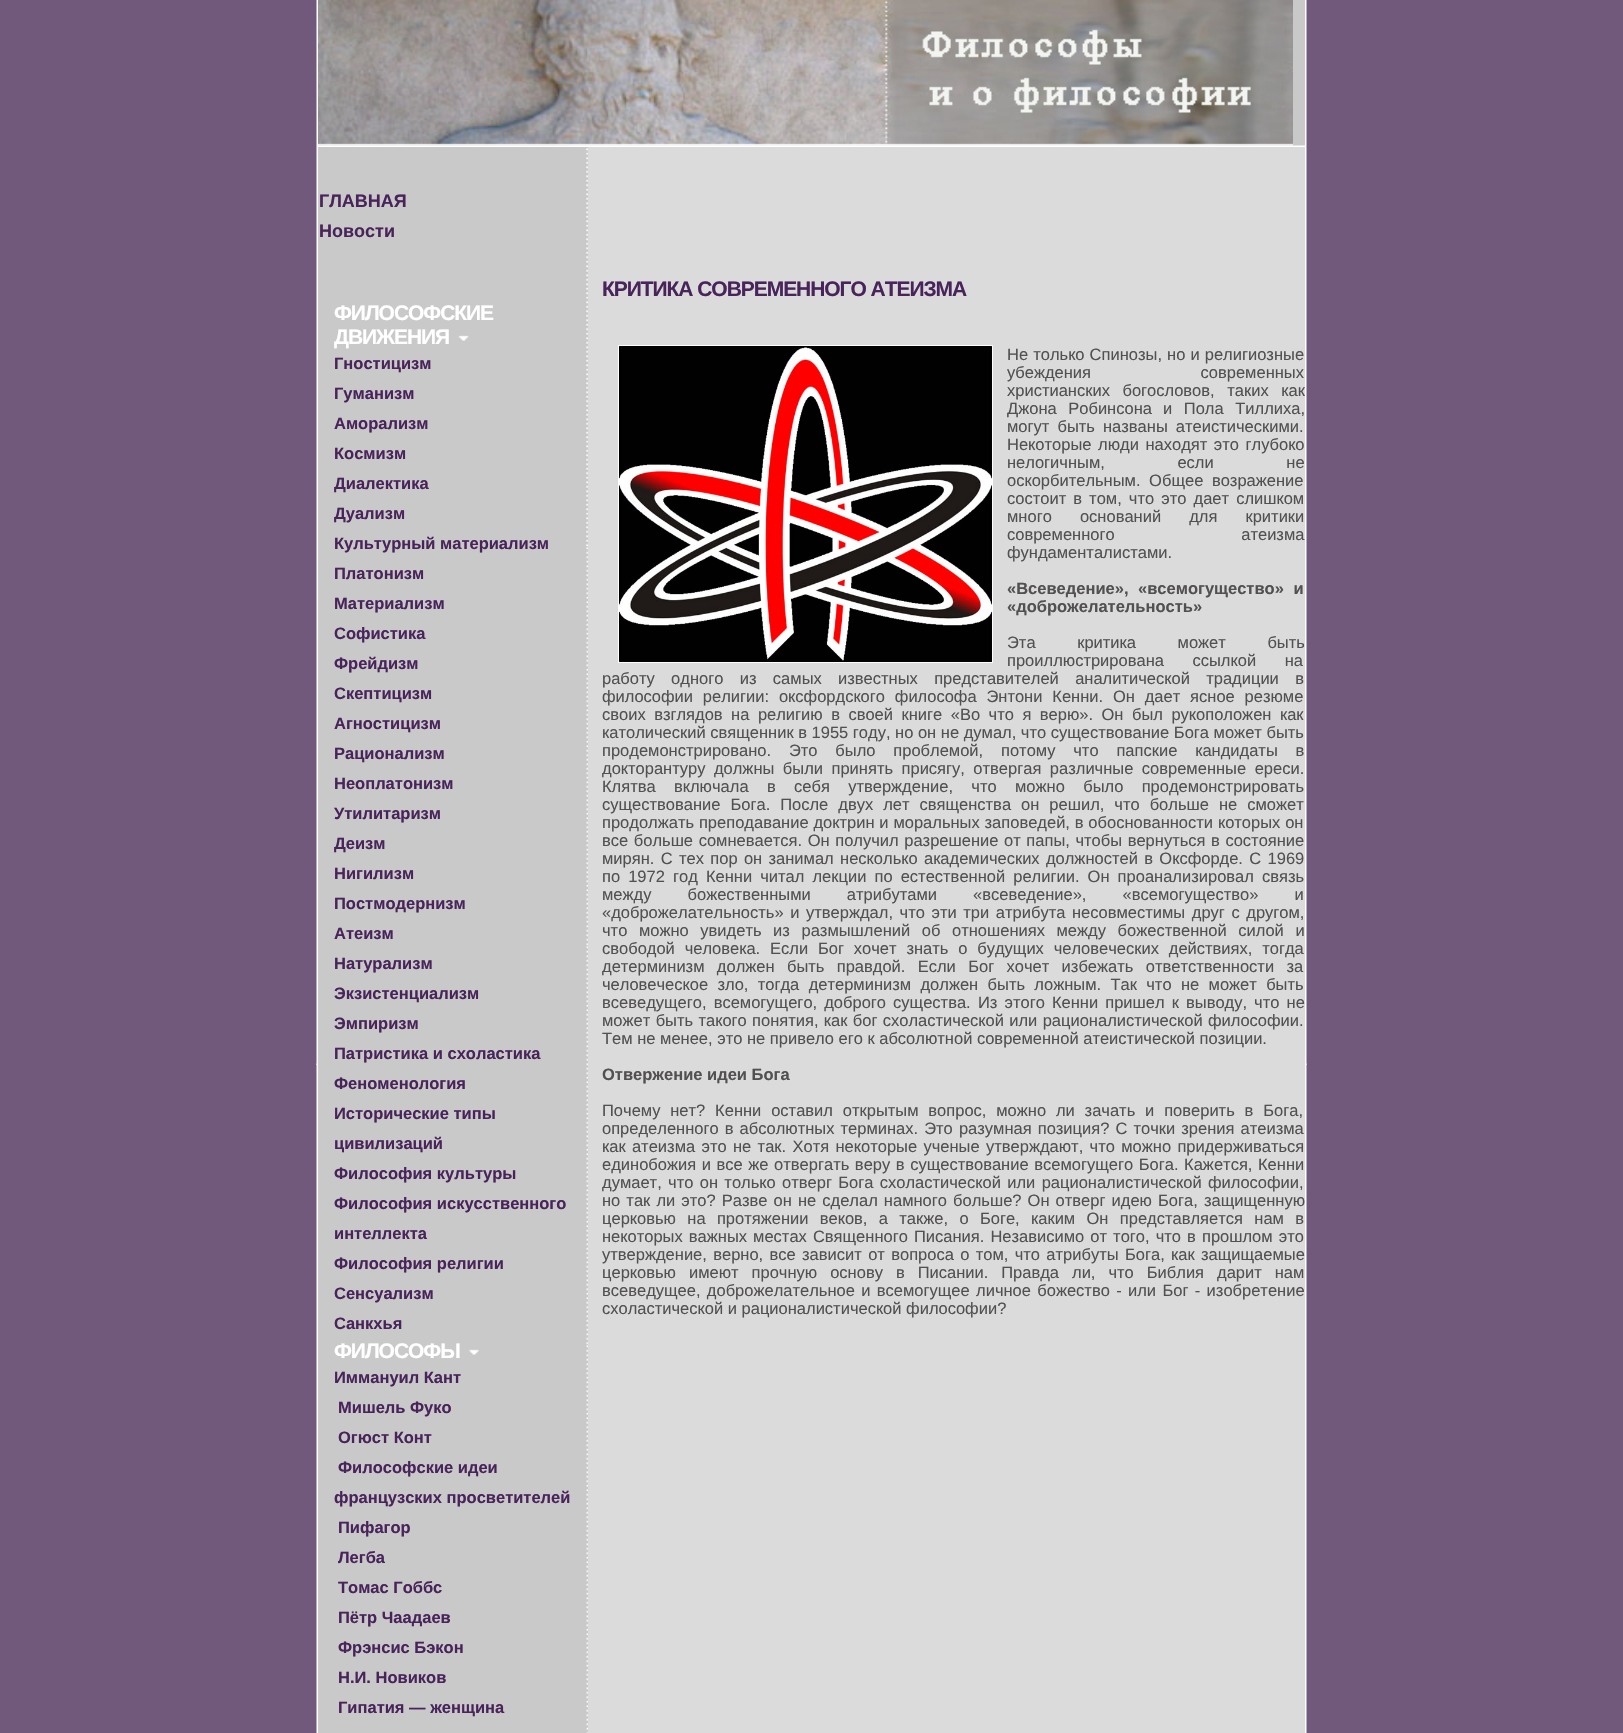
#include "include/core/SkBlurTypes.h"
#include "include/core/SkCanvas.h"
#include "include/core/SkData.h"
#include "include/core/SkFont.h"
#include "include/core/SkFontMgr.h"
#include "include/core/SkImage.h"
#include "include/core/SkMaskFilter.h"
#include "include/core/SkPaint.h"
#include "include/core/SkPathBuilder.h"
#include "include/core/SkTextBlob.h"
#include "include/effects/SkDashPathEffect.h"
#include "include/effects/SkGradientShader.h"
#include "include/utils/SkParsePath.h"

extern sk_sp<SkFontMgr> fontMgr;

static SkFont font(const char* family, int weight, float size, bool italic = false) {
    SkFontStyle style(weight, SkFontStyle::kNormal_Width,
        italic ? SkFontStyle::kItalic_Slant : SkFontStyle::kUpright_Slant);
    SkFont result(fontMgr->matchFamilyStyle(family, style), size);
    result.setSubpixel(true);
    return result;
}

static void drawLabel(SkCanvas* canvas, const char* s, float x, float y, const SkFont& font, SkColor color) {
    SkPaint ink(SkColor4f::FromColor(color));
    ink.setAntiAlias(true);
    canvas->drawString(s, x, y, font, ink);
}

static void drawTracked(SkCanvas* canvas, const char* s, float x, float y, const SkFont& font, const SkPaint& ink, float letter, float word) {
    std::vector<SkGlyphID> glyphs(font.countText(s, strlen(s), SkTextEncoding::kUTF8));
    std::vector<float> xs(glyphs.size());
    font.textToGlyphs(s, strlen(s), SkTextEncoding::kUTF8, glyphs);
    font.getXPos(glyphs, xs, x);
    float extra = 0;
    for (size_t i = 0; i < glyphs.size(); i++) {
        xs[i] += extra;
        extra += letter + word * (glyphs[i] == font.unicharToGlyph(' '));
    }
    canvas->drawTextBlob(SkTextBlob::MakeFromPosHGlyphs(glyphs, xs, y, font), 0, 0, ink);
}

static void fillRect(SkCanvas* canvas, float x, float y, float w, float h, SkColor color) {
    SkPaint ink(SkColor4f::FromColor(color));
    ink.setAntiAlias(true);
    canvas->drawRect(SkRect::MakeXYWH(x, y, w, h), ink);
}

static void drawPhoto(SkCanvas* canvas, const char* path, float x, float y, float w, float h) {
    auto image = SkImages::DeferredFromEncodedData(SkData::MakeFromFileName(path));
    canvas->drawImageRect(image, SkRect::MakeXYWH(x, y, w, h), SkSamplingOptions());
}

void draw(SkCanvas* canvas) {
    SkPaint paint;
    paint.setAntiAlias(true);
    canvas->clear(0xFF70597B);
    drawPhoto(canvas, "assets/img1.png", 316, 0, 2, 1733);
    drawPhoto(canvas, "assets/img2.png", 316, 1063, 1, 2);
    drawPhoto(canvas, "assets/img3.png", 318, 0, 987, 1733);
    drawPhoto(canvas, "assets/img5.png", 318, 145, 987, 2);
    drawPhoto(canvas, "assets/img4.png", 318, 0, 975, 146);
    fillRect(canvas, 318, 145, 1, 1, 0xFFF9F9F9);
    fillRect(canvas, 568, 147, 19, 1586, 0xFFC9C9C9);
    SkFont font1 = font("Liberation Sans", 700, 18);
    drawLabel(canvas, "ГЛАВНАЯ", 319, 207, font1, 0xFF49245B);
    drawLabel(canvas, "Новости", 319, 237, font1, 0xFF49245B);
    SkFont font2 = font("Liberation Sans", 700, 21);
    paint.setColor(0xFFFFFFFF);
    drawTracked(canvas, "ФИЛОСОФСКИЕ", 334, 320, font2, paint, -1.05f, 0);
    drawTracked(canvas, "ДВИЖЕНИЯ", 334, 344, font2, paint, -1.05f, 0);
    drawPhoto(canvas, "assets/img6.png", 458, 335, 11, 6);
    SkFont font3 = font("Liberation Sans", 700, 16.5f);
    drawLabel(canvas, "Гностицизм", 334, 369, font3, 0xFF49245B);
    drawLabel(canvas, "Гуманизм", 334, 399, font3, 0xFF49245B);
    drawLabel(canvas, "Аморализм", 334, 429, font3, 0xFF49245B);
    drawLabel(canvas, "Космизм", 334, 459, font3, 0xFF49245B);
    drawLabel(canvas, "Диалектика", 334, 489, font3, 0xFF49245B);
    drawLabel(canvas, "Дуализм", 334, 519, font3, 0xFF49245B);
    drawLabel(canvas, "Культурный материализм", 334, 549, font3, 0xFF49245B);
    drawLabel(canvas, "Платонизм", 334, 579, font3, 0xFF49245B);
    drawLabel(canvas, "Материализм", 334, 609, font3, 0xFF49245B);
    drawLabel(canvas, "Софистика", 334, 639, font3, 0xFF49245B);
    drawLabel(canvas, "Фрейдизм", 334, 669, font3, 0xFF49245B);
    drawLabel(canvas, "Скептицизм", 334, 699, font3, 0xFF49245B);
    drawLabel(canvas, "Агностицизм", 334, 729, font3, 0xFF49245B);
    drawLabel(canvas, "Рационализм", 334, 759, font3, 0xFF49245B);
    drawLabel(canvas, "Неоплатонизм", 334, 789, font3, 0xFF49245B);
    drawLabel(canvas, "Утилитаризм", 334, 819, font3, 0xFF49245B);
    drawLabel(canvas, "Деизм", 334, 849, font3, 0xFF49245B);
    drawLabel(canvas, "Нигилизм", 334, 879, font3, 0xFF49245B);
    drawLabel(canvas, "Постмодернизм", 334, 909, font3, 0xFF49245B);
    drawLabel(canvas, "Атеизм", 334, 939, font3, 0xFF49245B);
    drawLabel(canvas, "Натурализм", 334, 969, font3, 0xFF49245B);
    drawLabel(canvas, "Экзистенциализм", 334, 999, font3, 0xFF49245B);
    drawLabel(canvas, "Эмпиризм", 334, 1029, font3, 0xFF49245B);
    drawLabel(canvas, "Патристика и схоластика", 334, 1059, font3, 0xFF49245B);
    drawLabel(canvas, "Феноменология", 334, 1089, font3, 0xFF49245B);
    drawLabel(canvas, "Исторические типы", 334, 1119, font3, 0xFF49245B);
    drawLabel(canvas, "цивилизаций", 334, 1149, font3, 0xFF49245B);
    drawLabel(canvas, "Философия культуры", 334, 1179, font3, 0xFF49245B);
    drawLabel(canvas, "Философия искусственного", 334, 1209, font3, 0xFF49245B);
    drawLabel(canvas, "интеллекта", 334, 1239, font3, 0xFF49245B);
    drawLabel(canvas, "Философия религии", 334, 1269, font3, 0xFF49245B);
    drawLabel(canvas, "Сенсуализм", 334, 1299, font3, 0xFF49245B);
    drawLabel(canvas, "Санкхья", 334, 1329, font3, 0xFF49245B);
    drawTracked(canvas, "ФИЛОСОФЫ", 334, 1358, font2, paint, -1.05f, 0);
    drawPhoto(canvas, "assets/img7.png", 469, 1349, 10, 6);
    drawLabel(canvas, "Иммануил Кант", 334, 1383, font3, 0xFF49245B);
    drawLabel(canvas, "Мишель Фуко", 338, 1413, font3, 0xFF49245B);
    drawLabel(canvas, "Огюст Конт", 338, 1443, font3, 0xFF49245B);
    drawLabel(canvas, "Философские идеи", 338, 1473, font3, 0xFF49245B);
    drawLabel(canvas, "французских просветителей", 334, 1503, font3, 0xFF49245B);
    drawLabel(canvas, "Пифагор", 338, 1533, font3, 0xFF49245B);
    drawLabel(canvas, "Легба", 338, 1563, font3, 0xFF49245B);
    drawLabel(canvas, "Томас Гоббс", 338, 1593, font3, 0xFF49245B);
    drawLabel(canvas, "Пётр Чаадаев", 338, 1623, font3, 0xFF49245B);
    drawLabel(canvas, "Фрэнсис Бэкон", 338, 1653, font3, 0xFF49245B);
    drawLabel(canvas, "Н.И. Новиков", 338, 1683, font3, 0xFF49245B);
    drawLabel(canvas, "Гипатия — женщина", 338, 1713, font3, 0xFF49245B);
    drawPhoto(canvas, "assets/img8.png", 586, 147, 2, 1586);
    drawPhoto(canvas, "assets/img9.png", 586, 147, 2, 399);
    fillRect(canvas, 1214, 147, 91, 1586, 0xFFDBDBDB);
    paint.setColor(0xFF49245B);
    drawTracked(canvas, "КРИТИКА СОВРЕМЕННОГО АТЕИЗМА", 602, 296, font2, paint, -1.05f, 0);
    drawPhoto(canvas, "assets/img10.png", 618, 345, 375, 318);
    SkFont font4 = font("Liberation Sans", 400, 16.5f);
    paint.setColor(0xFF525050);
    drawTracked(canvas, "Не только Спинозы, но и религиозные", 1007, 360, font4, paint, 0, 0.5f);
    drawTracked(canvas, "убеждения современных", 1007, 378, font4, paint, 0, 105);
    drawTracked(canvas, "христианских богословов, таких как", 1007, 396, font4, paint, 0, 8);
    drawTracked(canvas, "Джона Робинсона", 1007, 414, font4, paint, 0, 7);
    drawTracked(canvas, "и Пола Тиллиха,", 1163, 414, font4, paint, 0, 7);
    drawTracked(canvas, "могут быть названы атеистическими.", 1007, 432, font4, paint, 0, 3.5f);
    drawTracked(canvas, "Некоторые люди находят это глубоко", 1007, 450, font4, paint, 0, 2);
    drawTracked(canvas, "нелогичным, если не", 1007, 468, font4, paint, 0, 68);
    drawTracked(canvas, "оскорбительным. Общее возражение", 1007, 486, font4, paint, 0, 4);
    drawTracked(canvas, "состоит в том, что это дает слишком", 1007, 504, font4, paint, 0, 2.5f);
    drawTracked(canvas, "много оснований для критики", 1007, 522, font4, paint, 0, 23.5f);
    drawTracked(canvas, "современного атеизма", 1007, 540, font4, paint, 0, 122);
    drawLabel(canvas, "фундаменталистами.", 1007, 558, font4, 0xFF525050);
    drawTracked(canvas, "«Всеведение», «всемогущество» и", 1007, 594, font3, paint, 0, 5);
    drawLabel(canvas, "«доброжелательность»", 1007, 612, font3, 0xFF525050);
    drawTracked(canvas, "Эта критика может быть", 1007, 648, font4, paint, 0, 37);
    drawTracked(canvas, "проиллюстрирована ссылкой на", 1007, 666, font4, paint, 0, 24);
    drawTracked(canvas, "работу одного из самых известных представителей аналитической традиции в", 602, 684, font4, paint, 0, 11.75f);
    drawTracked(canvas, "философии религии: оксфордского философа Энтони Кенни. Он дает ясное резюме", 602, 702, font4, paint, 0, 5.25f);
    drawTracked(canvas, "своих взглядов на религию в своей книге «Во что я верю». Он был рукоположен как", 602, 720, font4, paint, 0, 3.9f);
    drawLabel(canvas, "католический священник в 1955 году, но он не думал, что существование Бога может быть", 602, 738, font4, 0xFF525050);
    drawTracked(canvas, "продемонстрировано. Это было проблемой, потому что папские кандидаты в", 602, 756, font4, paint, 0, 13.25f);
    drawTracked(canvas, "докторантуру должны были принять присягу, отвергая различные современные ереси.", 602, 774, font4, paint, 0, 3.9f);
    drawTracked(canvas, "Клятва включала в себя утверждение, что можно было продемонстрировать", 602, 792, font4, paint, 0, 13.75f);
    drawTracked(canvas, "существование Бога. После двух лет священства он решил, что больше не сможет", 602, 810, font4, paint, 0, 5.4f);
    drawTracked(canvas, "продолжать преподавание доктрин и моральных заповедей, в обоснованности которых он", 602, 828, font4, paint, 0, 0.25f);
    drawTracked(canvas, "все больше сомневается. Он получил разрешение от папы, чтобы вернуться в состояние", 602, 846, font4, paint, 0, 1);
    drawTracked(canvas, "мирян. С тех пор он занимал несколько академических должностей в Оксфорде. С 1969", 602, 864, font4, paint, 0, 1.75f);
    drawTracked(canvas, "по 1972 год Кенни читал лекции по естественной религии. Он проанализировал связь", 602, 882, font4, paint, 0, 3.5f);
    drawTracked(canvas, "между божественными атрибутами «всеведение», «всемогущество» и", 602, 900, font4, paint, 0, 31.5f);
    drawTracked(canvas, "«доброжелательность» и утверждал, что эти три атрибута несовместимы друг с другом,", 602, 918, font4, paint, 0, 2);
    drawTracked(canvas, "что можно увидеть из размышлений об отношениях между божественной силой и", 602, 936, font4, paint, 0, 7);
    drawTracked(canvas, "свободой человека. Если Бог хочет знать о будущих человеческих действиях, тогда", 602, 954, font4, paint, 0, 5.25f);
    drawTracked(canvas, "детерминизм должен быть правдой. Если Бог хочет избежать ответственности за", 602, 972, font4, paint, 0, 7.75f);
    drawTracked(canvas, "человеческое зло, тогда детерминизм должен быть ложным. Так что не может быть", 602, 990, font4, paint, 0, 4.75f);
    drawTracked(canvas, "всеведущего, всемогущего, доброго существа.", 602, 1008, font4, paint, 0, 2.5f);
    drawTracked(canvas, "Из этого Кенни пришел к выводу, что не", 978, 1008, font4, paint, 0, 2.5f);
    drawTracked(canvas, "может быть такого понятия, как бог схоластической или рационалистической философии.", 602, 1026, font4, paint, 0, 0.75f);
    drawLabel(canvas, "Тем не менее, это не привело его к абсолютной современной атеистической позиции.", 602, 1044, font4, 0xFF525050);
    drawLabel(canvas, "Отвержение идеи Бога", 602, 1080, font3, 0xFF525050);
    drawTracked(canvas, "Почему нет? Кенни оставил открытым вопрос, можно ли зачать и поверить в Бога,", 602, 1116, font4, paint, 0, 5.25f);
    drawTracked(canvas, "определенного в абсолютных терминах. Это разумная позиция? С точки зрения атеизма", 602, 1134, font4, paint, 0, 1.5f);
    drawTracked(canvas, "как атеизма это не так. Хотя некоторые ученые утверждают, что можно придерживаться", 602, 1152, font4, paint, 0, 1.75f);
    drawTracked(canvas, "единобожия и все же отвергать веру в существование всемогущего Бога. Кажется, Кенни", 602, 1170, font4, paint, 0, 1);
    drawTracked(canvas, "думает, что он только отверг Бога схоластической или рационалистической философии,", 602, 1188, font4, paint, 0, 1.75f);
    drawTracked(canvas, "но так ли это? Разве он не сделал намного больше? Он отверг идею Бога, защищенную", 602, 1206, font4, paint, 0, 1.5f);
    drawTracked(canvas, "церковью на протяжении веков, а также, о Боге, каким Он представляется нам в", 602, 1224, font4, paint, 0, 6.75f);
    drawTracked(canvas, "некоторых важных местах Священного Писания. Независимо от того, что в прошлом это", 602, 1242, font4, paint, 0, 1.5f);
    drawTracked(canvas, "утверждение, верно, все зависит от вопроса о том, что атрибуты Бога, как защищаемые", 602, 1260, font4, paint, 0, 1.75f);
    drawTracked(canvas, "церковью имеют прочную основу в Писании. Правда ли, что Библия дарит нам", 602, 1278, font4, paint, 0, 8.4f);
    drawTracked(canvas, "всеведущее, доброжелательное и всемогущее личное божество - или Бог - изобретение", 602, 1296, font4, paint, 0, 1.75f);
    drawLabel(canvas, "схоластической и рационалистической философии?", 602, 1314, font4, 0xFF525050);
    drawPhoto(canvas, "assets/img11.png", 1305, 0, 2, 1733);
    drawPhoto(canvas, "assets/img2.png", 1306, 1063, 1, 2);
}
